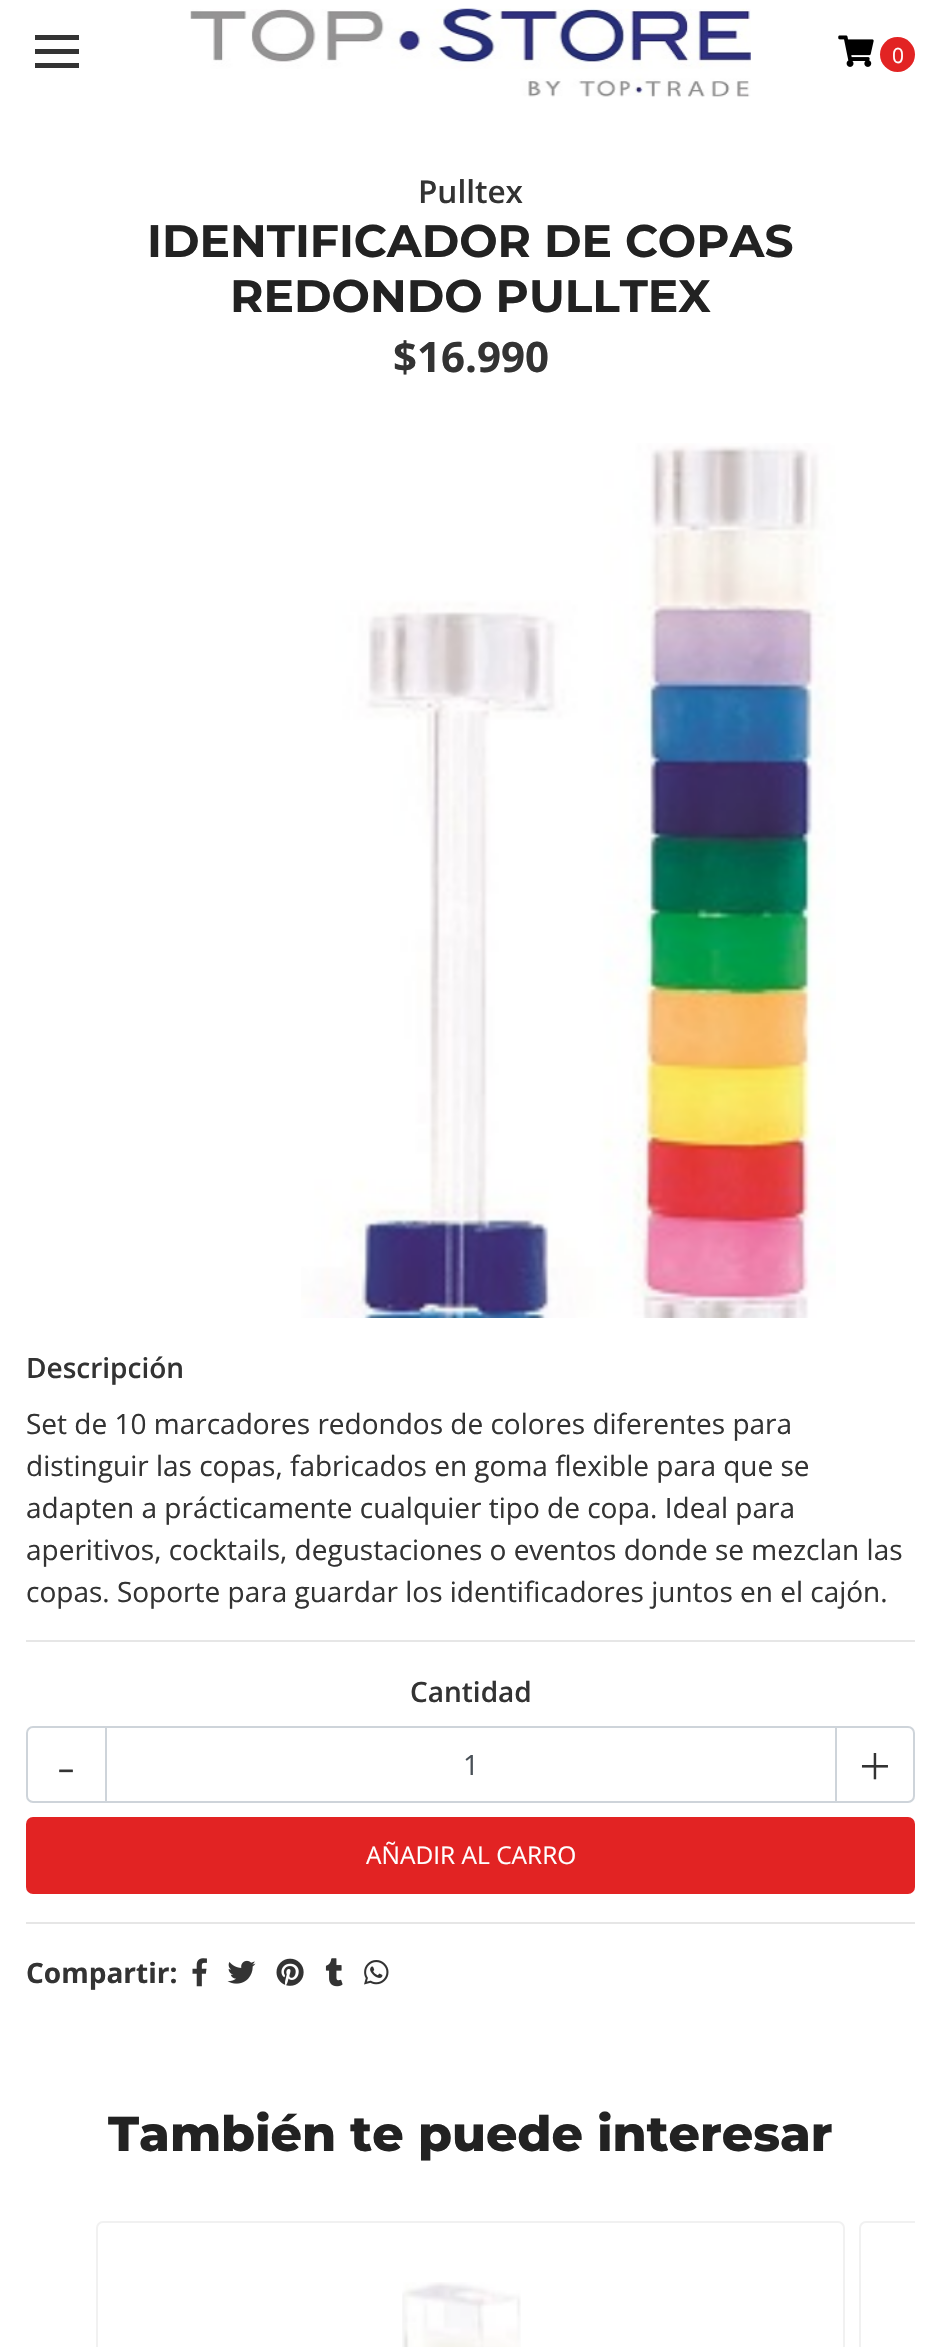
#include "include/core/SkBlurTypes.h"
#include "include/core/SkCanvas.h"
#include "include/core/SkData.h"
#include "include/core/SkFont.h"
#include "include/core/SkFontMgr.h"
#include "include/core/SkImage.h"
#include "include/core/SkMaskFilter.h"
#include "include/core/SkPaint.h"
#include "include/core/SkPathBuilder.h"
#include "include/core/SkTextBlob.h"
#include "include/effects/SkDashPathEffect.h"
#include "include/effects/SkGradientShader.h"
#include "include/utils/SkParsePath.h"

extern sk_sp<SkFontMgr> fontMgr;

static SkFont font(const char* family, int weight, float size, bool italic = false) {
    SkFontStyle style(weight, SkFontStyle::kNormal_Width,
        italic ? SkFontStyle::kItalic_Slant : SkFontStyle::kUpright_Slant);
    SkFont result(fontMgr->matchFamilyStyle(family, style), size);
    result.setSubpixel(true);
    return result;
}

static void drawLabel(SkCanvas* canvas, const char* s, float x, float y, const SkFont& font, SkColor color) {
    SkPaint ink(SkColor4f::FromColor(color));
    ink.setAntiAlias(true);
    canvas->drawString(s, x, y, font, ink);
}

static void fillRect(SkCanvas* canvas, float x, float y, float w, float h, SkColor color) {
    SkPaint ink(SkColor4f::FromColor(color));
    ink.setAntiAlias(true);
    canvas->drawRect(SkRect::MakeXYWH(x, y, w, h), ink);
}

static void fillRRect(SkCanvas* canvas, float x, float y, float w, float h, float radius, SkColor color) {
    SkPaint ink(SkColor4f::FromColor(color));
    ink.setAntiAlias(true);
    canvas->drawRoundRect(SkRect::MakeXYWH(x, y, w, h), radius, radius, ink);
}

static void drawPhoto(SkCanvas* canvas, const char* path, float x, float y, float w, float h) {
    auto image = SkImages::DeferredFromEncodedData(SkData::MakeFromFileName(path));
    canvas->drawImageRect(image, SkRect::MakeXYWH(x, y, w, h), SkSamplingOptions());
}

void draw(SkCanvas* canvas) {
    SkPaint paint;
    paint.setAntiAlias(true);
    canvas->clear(0xFFFFFFFF);
    fillRect(canvas, 35, 35, 44, 5, 0xFF333333);
    fillRect(canvas, 35, 49, 44, 5, 0xFF333333);
    fillRect(canvas, 35, 63, 44, 5, 0xFF333333);
    drawPhoto(canvas, "assets/img1.png", 190, 8, 561, 89);
    drawPhoto(canvas, "assets/img2.png", 838, 35, 36, 32);
    paint.setColor(0xFFE22323);
    canvas->drawCircle(897.5f, 54.5f, 17.5f, paint);
    SkFont font1 = font("Open Sans", 400, 21);
    drawLabel(canvas, "0", 892, 63, font1, 0xFFFFFFFF);
    SkFont font2 = font("Open Sans", 600, 31.5f);
    drawLabel(canvas, "Pulltex", 418, 203, font2, 0xFF333333);
    SkFont font3 = font("Montserrat", 700, 45.5f);
    drawLabel(canvas, "IDENTIFICADOR DE COPAS", 147, 257, font3, 0xFF222222);
    drawLabel(canvas, "REDONDO PULLTEX", 230, 312, font3, 0xFF222222);
    SkFont font4 = font("Open Sans", 700, 42);
    drawLabel(canvas, "$16.990", 393, 372, font4, 0xFF333333);
    drawPhoto(canvas, "assets/img3.png", 301, 443, 535, 875);
    fillRect(canvas, 26, 1640, 889, 2, 0xFFE6E6E6);
    SkFont font5 = font("Open Sans", 600, 28);
    drawLabel(canvas, "Descripción", 26, 1378, font5, 0xFF333333);
    SkFont font6 = font("Open Sans", 400, 28);
    drawLabel(canvas, "Set de 10 marcadores redondos de colores diferentes para", 26, 1434, font6, 0xFF333333);
    drawLabel(canvas, "distinguir las copas, fabricados en goma flexible para que se", 26, 1476, font6, 0xFF333333);
    drawLabel(canvas, "adapten a prácticamente cualquier tipo de copa. Ideal para", 26, 1518, font6, 0xFF333333);
    drawLabel(canvas, "aperitivos, cocktails, degustaciones o eventos donde se mezclan las", 26, 1560, font6, 0xFF333333);
    drawLabel(canvas, "copas. Soporte para guardar los identificadores juntos en el cajón.", 26, 1602, font6, 0xFF333333);
    fillRect(canvas, 26, 1922, 889, 2, 0xFFE6E6E6);
    drawLabel(canvas, "Cantidad", 410, 1702, font5, 0xFF333333);
    paint.setStroke(true);
    paint.setStrokeWidth(2);
    paint.setColor(0xFFCED4DA);
    canvas->drawRoundRect(SkRect::MakeXYWH(27, 1727, 887, 75), 6, 6, paint);
    fillRect(canvas, 105, 1727, 2, 74, 0xFFCED4DA);
    SkFont font7 = font("Open Sans", 300, 56);
    drawLabel(canvas, "-", 57, 1786, font7, 0xFF333333);
    fillRect(canvas, 835, 1727, 2, 74, 0xFFCED4DA);
    drawLabel(canvas, "+", 859, 1786, font7, 0xFF333333);
    drawLabel(canvas, "1", 463, 1775, font6, 0xFF495057);
    fillRRect(canvas, 26, 1817, 889, 77, 7, 0xFFE22323);
    SkFont font8 = font("Open Sans", 400, 24.5f);
    drawLabel(canvas, "AÑADIR AL CARRO", 366, 1864, font8, 0xFFFFFFFF);
    SkFont font9 = font("Open Sans", 700, 28);
    drawLabel(canvas, "Compartir:", 26, 1983, font9, 0xFF333333);
    drawPhoto(canvas, "assets/img4.png", 192, 1958, 15, 29);
    drawPhoto(canvas, "assets/img5.png", 227, 1960, 29, 24);
    drawPhoto(canvas, "assets/img6.png", 276, 1958, 28, 28);
    drawPhoto(canvas, "assets/img7.png", 325, 1958, 18, 29);
    drawPhoto(canvas, "assets/img8.png", 364, 1960, 25, 25);
    SkFont font10 = font("Montserrat", 800, 49);
    drawLabel(canvas, "También te puede interesar", 108, 2151, font10, 0xFF222222);
    paint.setColor(0xFFF1F1F1);
    canvas->drawRoundRect(SkRect::MakeXYWH(97, 2222, 747, 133), 6, 6, paint);
    drawPhoto(canvas, "assets/img9.png", 402, 2282, 119, 65);
    canvas->save();
    canvas->clipRect(SkRect::MakeXYWH(26, 2221, 889, 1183));
    canvas->drawRoundRect(SkRect::MakeXYWH(860, 2222, 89, 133), 6, 6, paint);
    canvas->restore();
}
